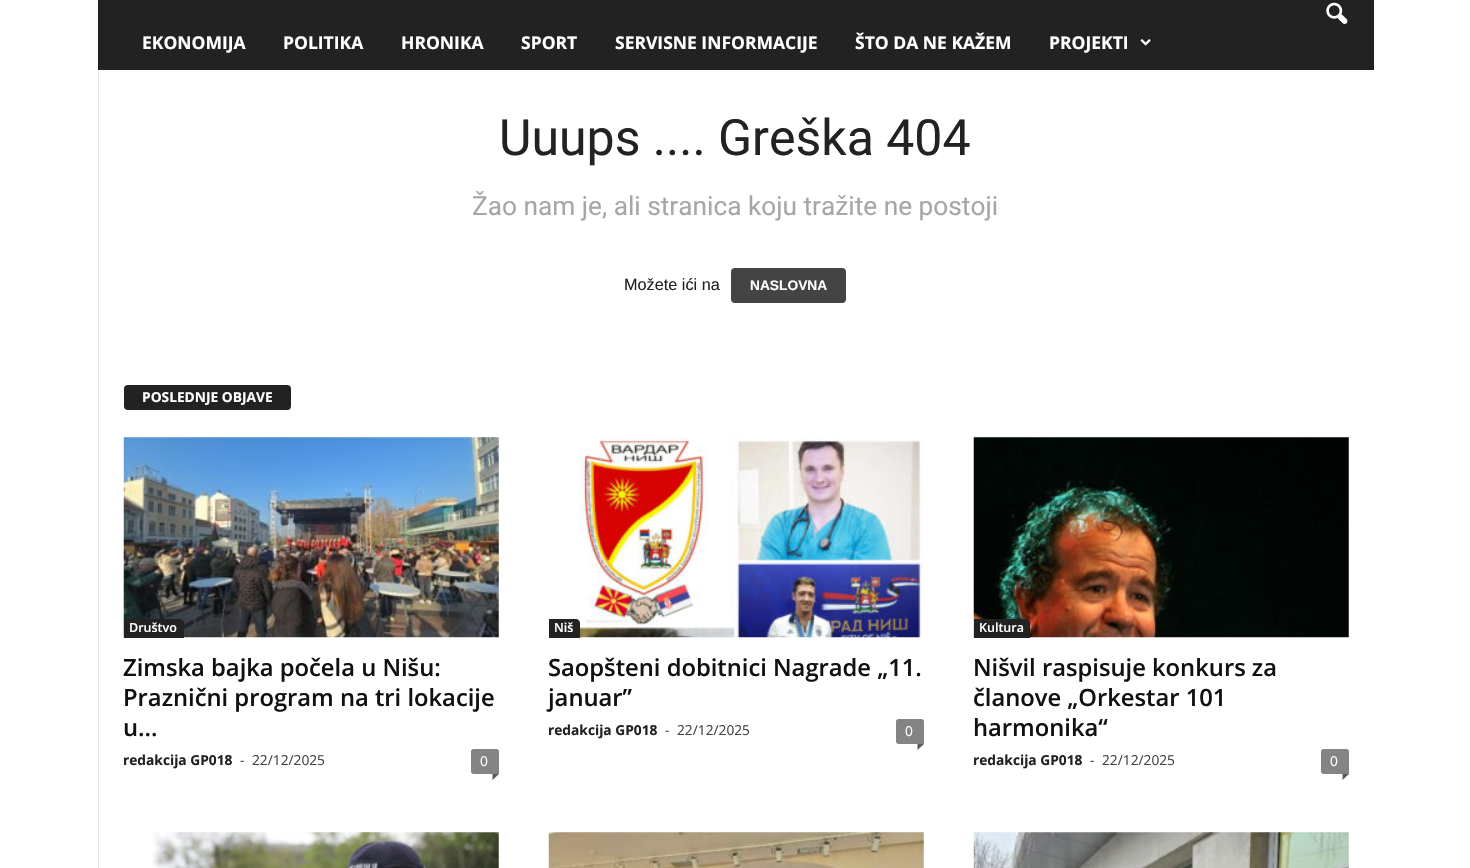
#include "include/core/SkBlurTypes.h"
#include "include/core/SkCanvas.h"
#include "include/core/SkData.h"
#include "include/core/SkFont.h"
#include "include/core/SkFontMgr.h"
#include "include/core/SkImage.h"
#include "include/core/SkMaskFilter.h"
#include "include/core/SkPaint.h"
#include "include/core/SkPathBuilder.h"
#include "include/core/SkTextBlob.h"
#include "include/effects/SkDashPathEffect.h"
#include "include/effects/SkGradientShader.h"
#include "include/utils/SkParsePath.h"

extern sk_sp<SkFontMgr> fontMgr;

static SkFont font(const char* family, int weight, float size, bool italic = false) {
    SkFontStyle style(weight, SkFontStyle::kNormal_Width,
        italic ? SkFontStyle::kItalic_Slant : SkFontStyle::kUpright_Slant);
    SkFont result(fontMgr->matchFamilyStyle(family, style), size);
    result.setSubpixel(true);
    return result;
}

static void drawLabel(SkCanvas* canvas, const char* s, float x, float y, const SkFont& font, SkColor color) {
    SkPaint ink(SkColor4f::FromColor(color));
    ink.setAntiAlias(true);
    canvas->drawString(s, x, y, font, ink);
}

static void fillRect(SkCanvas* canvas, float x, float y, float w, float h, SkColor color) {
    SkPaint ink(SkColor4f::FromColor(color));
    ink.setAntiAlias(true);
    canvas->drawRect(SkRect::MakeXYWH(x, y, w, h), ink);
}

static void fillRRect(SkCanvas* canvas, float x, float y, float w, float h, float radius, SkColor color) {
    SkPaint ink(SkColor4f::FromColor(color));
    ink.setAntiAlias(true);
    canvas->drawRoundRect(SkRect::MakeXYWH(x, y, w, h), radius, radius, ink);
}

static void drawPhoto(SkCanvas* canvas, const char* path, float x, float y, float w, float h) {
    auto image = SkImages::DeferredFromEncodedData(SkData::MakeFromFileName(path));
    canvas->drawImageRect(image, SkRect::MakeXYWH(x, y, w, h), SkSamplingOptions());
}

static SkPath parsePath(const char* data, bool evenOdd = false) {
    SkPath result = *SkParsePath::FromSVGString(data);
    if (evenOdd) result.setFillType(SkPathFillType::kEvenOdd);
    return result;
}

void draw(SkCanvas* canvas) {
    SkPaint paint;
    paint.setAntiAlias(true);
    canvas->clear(0xFFFFFFFF);
    fillRect(canvas, 98, 0, 1276, 70, 0xFF222222);
    drawPhoto(canvas, "assets/img1.png", 1326, 2, 22, 22);
    SkFont font1 = font("Open Sans", 700, 17.5f);
    drawLabel(canvas, "EKONOMIJA", 142, 49, font1, 0xFFFFFFFF);
    drawLabel(canvas, "POLITIKA", 283, 49, font1, 0xFFFFFFFF);
    drawLabel(canvas, "HRONIKA", 401, 49, font1, 0xFFFFFFFF);
    drawLabel(canvas, "SPORT", 521, 49, font1, 0xFFFFFFFF);
    drawLabel(canvas, "SERVISNE INFORMACIJE", 615, 49, font1, 0xFFFFFFFF);
    drawLabel(canvas, "ŠTO DA NE KAŽEM", 855, 49, font1, 0xFFFFFFFF);
    drawLabel(canvas, "PROJEKTI", 1049, 49, font1, 0xFFFFFFFF);
    drawPhoto(canvas, "assets/img2.png", 1140, 39, 11, 7);
    fillRect(canvas, 98, 70, 1, 798, 0xFFE6E6E6);
    SkFont font2 = font("Roboto", 400, 50);
    drawLabel(canvas, "Uuups .... Greška 404", 499, 155, font2, 0xFF222222);
    SkFont font3 = font("Roboto", 400, 26.25f);
    drawLabel(canvas, "Žao nam je, ali stranica koju tražite ne postoji", 472, 215, font3, 0xFFA6A6A6);
    SkFont font4 = font("Liberation Sans", 400, 16.25f);
    drawLabel(canvas, "Možete ići na", 624, 290, font4, 0xFF222222);
    fillRRect(canvas, 731, 268, 115, 35, 4, 0xFF444444);
    SkFont font5 = font("Liberation Sans", 700, 13.75f);
    drawLabel(canvas, "NASLOVNA", 750, 290, font5, 0xFFFFFFFF);
    fillRRect(canvas, 124, 385, 167, 25, 4, 0xFF222222);
    SkFont font6 = font("Open Sans", 700, 13.75f);
    drawLabel(canvas, "POSLEDNJE OBJAVE", 142, 402, font6, 0xFFFFFFFF);
    drawPhoto(canvas, "assets/img3.png", 123, 437, 376, 201);
    paint.setColor(0xFF222222);
    canvas->drawPath(parsePath("M124 619H180C182 619 184 621 184 623V638H124Z"), paint);
    SkFont font7 = font("Open Sans", 600, 12.5f);
    drawLabel(canvas, "Društvo", 129, 632, font7, 0xFFFFFFFF);
    SkFont font8 = font("Open Sans", 600, 23.75f);
    drawLabel(canvas, "Zimska bajka počela u Nišu:", 123, 676, font8, 0xFF111111);
    drawLabel(canvas, "Praznični program na tri lokacije", 123, 706, font8, 0xFF111111);
    drawLabel(canvas, "u...", 123, 736, font8, 0xFF111111);
    drawLabel(canvas, "redakcija GP018", 123, 765, font6, 0xFF222222);
    SkFont font9 = font("Open Sans", 400, 13.75f);
    drawLabel(canvas, "-", 240, 765, font9, 0xFF444444);
    drawLabel(canvas, "22/12/2025", 252, 765, font9, 0xFF444444);
    paint.setColor(0xFF848484);
    canvas->drawPath(parsePath("M473.5 749H496.5C498 749 499 750 499 751.5V774H473.5C472 774 471 773 471 771.5V751.5C471 750 472 749 473.5 749Z"), paint);
    drawLabel(canvas, "0", 480, 766, font9, 0xFFFFFFFF);
    paint.setColor(0xFF5B5B5B);
    canvas->drawPath(parsePath("M492.5 774H499L492.5 780Z"), paint);
    drawPhoto(canvas, "assets/img4.png", 549, 437, 375, 201);
    paint.setColor(0xFF222222);
    canvas->drawPath(parsePath("M549 619H576C578 619 580 621 580 623V638H549Z"), paint);
    drawLabel(canvas, "Niš", 554, 632, font7, 0xFFFFFFFF);
    drawLabel(canvas, "Saopšteni dobitnici Nagrade „11.", 548, 676, font8, 0xFF111111);
    drawLabel(canvas, "januar”", 548, 706, font8, 0xFF111111);
    drawLabel(canvas, "redakcija GP018", 548, 735, font6, 0xFF222222);
    drawLabel(canvas, "-", 665, 735, font9, 0xFF444444);
    drawLabel(canvas, "22/12/2025", 677, 735, font9, 0xFF444444);
    paint.setColor(0xFF848484);
    canvas->drawPath(parsePath("M898.5 719H921.5C923 719 924 720 924 721.5V744H898.5C897 744 896 743 896 741.5V721.5C896 720 897 719 898.5 719Z"), paint);
    drawLabel(canvas, "0", 905, 736, font9, 0xFFFFFFFF);
    paint.setColor(0xFF5B5B5B);
    canvas->drawPath(parsePath("M917.5 744H924L917.5 750Z"), paint);
    drawPhoto(canvas, "assets/img5.png", 973, 437, 376, 201);
    paint.setColor(0xFF222222);
    canvas->drawPath(parsePath("M974 619H1026C1028 619 1030 621 1030 623V638H974Z"), paint);
    drawLabel(canvas, "Kultura", 979, 632, font7, 0xFFFFFFFF);
    drawLabel(canvas, "Nišvil raspisuje konkurs za", 973, 676, font8, 0xFF111111);
    drawLabel(canvas, "članove „Orkestar 101", 973, 706, font8, 0xFF111111);
    drawLabel(canvas, "harmonika“", 973, 736, font8, 0xFF111111);
    drawLabel(canvas, "redakcija GP018", 973, 765, font6, 0xFF222222);
    drawLabel(canvas, "-", 1090, 765, font9, 0xFF444444);
    drawLabel(canvas, "22/12/2025", 1102, 765, font9, 0xFF444444);
    paint.setColor(0xFF848484);
    canvas->drawPath(parsePath("M1323.5 749H1346.5C1348 749 1349 750 1349 751.5V774H1323.5C1322 774 1321 773 1321 771.5V751.5C1321 750 1322 749 1323.5 749Z"), paint);
    drawLabel(canvas, "0", 1330, 766, font9, 0xFFFFFFFF);
    paint.setColor(0xFF5B5B5B);
    canvas->drawPath(parsePath("M1342.5 774H1349L1342.5 780Z"), paint);
    drawPhoto(canvas, "assets/img6.png", 152, 832, 347, 36);
    drawPhoto(canvas, "assets/img7.png", 548, 832, 376, 36);
    drawPhoto(canvas, "assets/img8.png", 973, 832, 376, 36);
}
